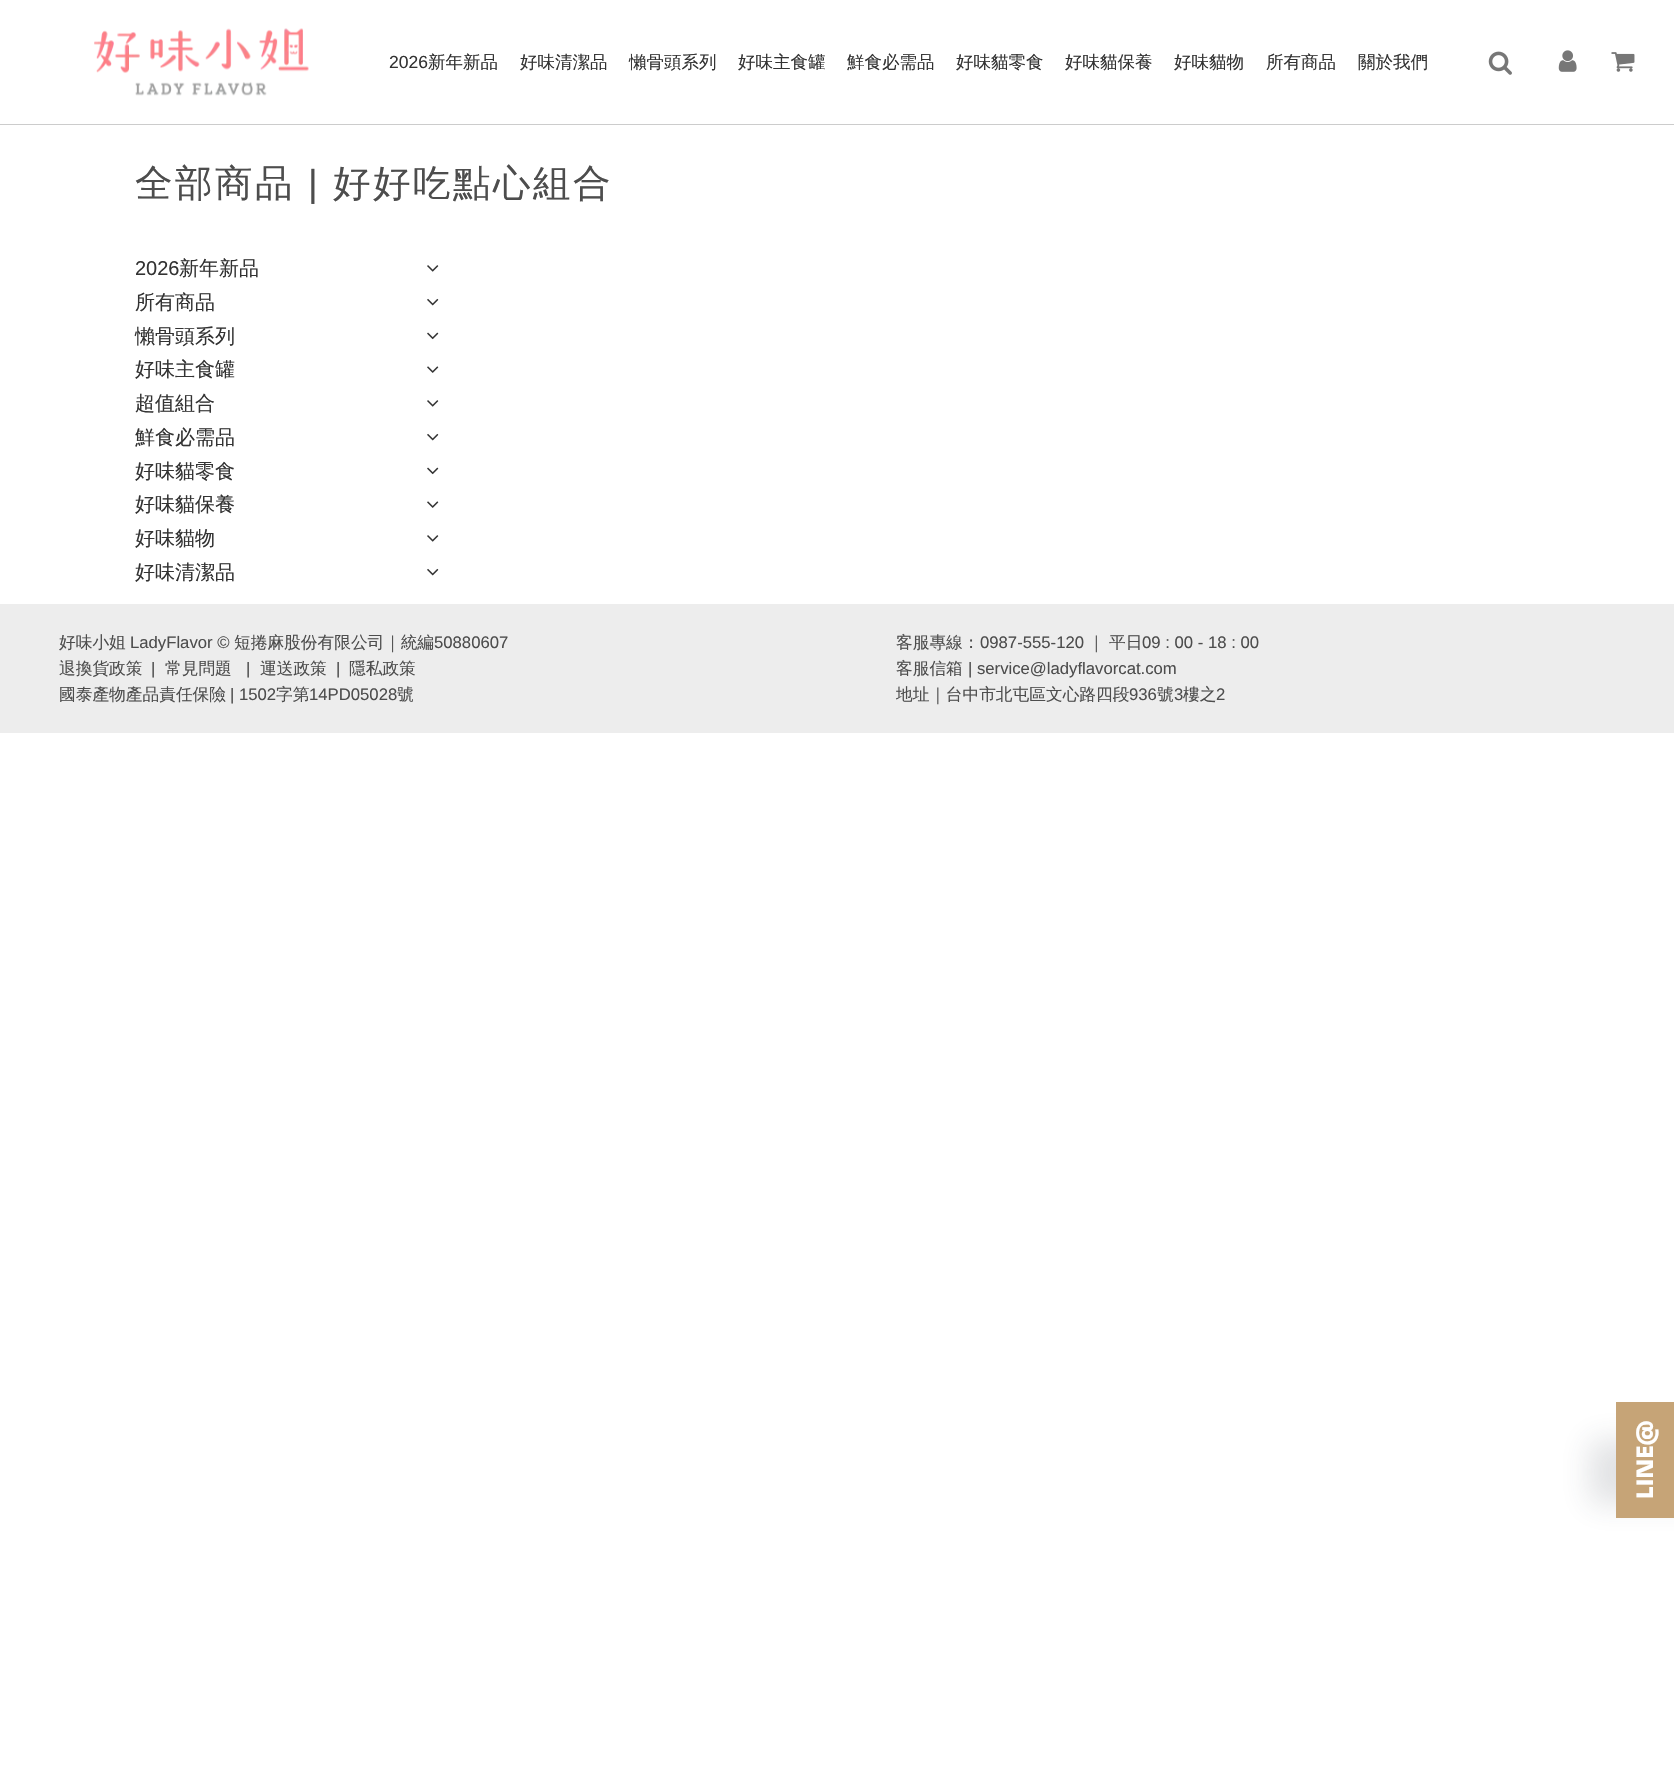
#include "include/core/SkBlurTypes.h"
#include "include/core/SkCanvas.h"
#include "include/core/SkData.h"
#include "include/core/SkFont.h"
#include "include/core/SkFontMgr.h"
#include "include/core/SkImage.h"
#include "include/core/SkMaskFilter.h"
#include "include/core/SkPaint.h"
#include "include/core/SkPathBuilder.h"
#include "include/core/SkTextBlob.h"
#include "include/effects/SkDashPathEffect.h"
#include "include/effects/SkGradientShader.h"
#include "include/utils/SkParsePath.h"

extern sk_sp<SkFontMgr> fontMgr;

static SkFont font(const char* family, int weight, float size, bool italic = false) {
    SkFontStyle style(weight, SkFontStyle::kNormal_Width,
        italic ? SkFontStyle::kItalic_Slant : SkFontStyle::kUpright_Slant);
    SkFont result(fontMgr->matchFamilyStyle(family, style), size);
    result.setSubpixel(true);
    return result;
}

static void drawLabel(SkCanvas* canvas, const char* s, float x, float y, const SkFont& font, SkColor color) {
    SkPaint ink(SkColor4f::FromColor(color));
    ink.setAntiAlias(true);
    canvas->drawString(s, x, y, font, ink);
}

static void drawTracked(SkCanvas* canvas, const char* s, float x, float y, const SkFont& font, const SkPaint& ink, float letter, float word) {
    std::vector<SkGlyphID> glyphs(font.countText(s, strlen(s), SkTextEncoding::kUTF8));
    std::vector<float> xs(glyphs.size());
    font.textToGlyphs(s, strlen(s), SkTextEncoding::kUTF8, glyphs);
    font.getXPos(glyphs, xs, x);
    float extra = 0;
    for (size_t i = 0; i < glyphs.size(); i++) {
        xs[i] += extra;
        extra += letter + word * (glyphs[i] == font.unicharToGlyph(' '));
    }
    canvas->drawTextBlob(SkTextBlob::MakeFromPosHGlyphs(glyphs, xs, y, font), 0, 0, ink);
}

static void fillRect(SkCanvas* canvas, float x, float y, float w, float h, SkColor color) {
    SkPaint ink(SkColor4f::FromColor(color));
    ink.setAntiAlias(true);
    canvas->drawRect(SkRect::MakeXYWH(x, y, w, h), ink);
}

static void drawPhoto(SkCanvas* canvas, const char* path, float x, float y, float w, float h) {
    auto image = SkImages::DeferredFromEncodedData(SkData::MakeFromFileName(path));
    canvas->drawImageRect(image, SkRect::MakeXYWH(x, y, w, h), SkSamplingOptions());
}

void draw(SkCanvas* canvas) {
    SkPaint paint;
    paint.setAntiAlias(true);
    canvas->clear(0xFFFFFFFF);
    fillRect(canvas, 0, 124, 1674, 1, 0xFFCCCCCC);
    drawPhoto(canvas, "assets/img1.png", 94, 28, 215, 68);
    SkFont font1 = font("Liberation Sans", 400, 17.5f);
    drawLabel(canvas, "2026", 389, 68, font1, 0xFF333333);
    SkFont font2 = font("WenQuanYi Zen Hei", 500, 17.5f);
    drawLabel(canvas, "新年新品", 428, 68, font2, 0xFF333333);
    drawLabel(canvas, "好味清潔品", 520, 68, font2, 0xFF333333);
    drawLabel(canvas, "懶骨頭系列", 629, 68, font2, 0xFF333333);
    drawLabel(canvas, "好味主食罐", 738, 68, font2, 0xFF333333);
    drawLabel(canvas, "鮮食必需品", 847, 68, font2, 0xFF333333);
    drawLabel(canvas, "好味貓零食", 956, 68, font2, 0xFF333333);
    drawLabel(canvas, "好味貓保養", 1065, 68, font2, 0xFF333333);
    drawLabel(canvas, "好味貓物", 1174, 68, font2, 0xFF333333);
    drawLabel(canvas, "所有商品", 1266, 68, font2, 0xFF333333);
    drawLabel(canvas, "關於我們", 1358, 68, font2, 0xFF333333);
    drawPhoto(canvas, "assets/img2.png", 1488, 51, 24, 24);
    drawPhoto(canvas, "assets/img3.png", 1558, 50, 19, 22);
    drawPhoto(canvas, "assets/img4.png", 1611, 52, 24, 20);
    SkFont font3 = font("WenQuanYi Zen Hei", 500, 37.5f);
    paint.setColor(0xFF4D4D4D);
    drawTracked(canvas, "全部商品", 135, 196, font3, paint, 2.5f, 0);
    SkFont font4 = font("Liberation Sans", 400, 37.5f);
    drawTracked(canvas, "|", 308, 196, font4, paint, 2.5f, 0);
    drawTracked(canvas, "好好吃點心組合", 333, 196, font3, paint, 2.5f, 0);
    SkFont font5 = font("Liberation Sans", 400, 20);
    drawLabel(canvas, "2026", 135, 275, font5, 0xFF333333);
    SkFont font6 = font("WenQuanYi Zen Hei", 500, 20);
    drawLabel(canvas, "新年新品", 179, 275, font6, 0xFF333333);
    drawPhoto(canvas, "assets/img5.png", 427, 265, 12, 7);
    drawLabel(canvas, "所有商品", 135, 309, font6, 0xFF333333);
    drawPhoto(canvas, "assets/img6.png", 427, 298, 12, 8);
    drawLabel(canvas, "懶骨頭系列", 135, 343, font6, 0xFF333333);
    drawPhoto(canvas, "assets/img7.png", 427, 332, 12, 8);
    drawLabel(canvas, "好味主食罐", 135, 376, font6, 0xFF333333);
    drawPhoto(canvas, "assets/img8.png", 427, 366, 12, 7);
    drawLabel(canvas, "超值組合", 135, 410, font6, 0xFF333333);
    drawPhoto(canvas, "assets/img5.png", 427, 400, 12, 7);
    drawLabel(canvas, "鮮食必需品", 135, 444, font6, 0xFF333333);
    drawPhoto(canvas, "assets/img6.png", 427, 433, 12, 8);
    drawLabel(canvas, "好味貓零食", 135, 478, font6, 0xFF333333);
    drawPhoto(canvas, "assets/img7.png", 427, 467, 12, 8);
    drawLabel(canvas, "好味貓保養", 135, 511, font6, 0xFF333333);
    drawPhoto(canvas, "assets/img8.png", 427, 501, 12, 7);
    drawLabel(canvas, "好味貓物", 135, 545, font6, 0xFF333333);
    drawPhoto(canvas, "assets/img5.png", 427, 535, 12, 7);
    drawLabel(canvas, "好味清潔品", 135, 579, font6, 0xFF333333);
    drawPhoto(canvas, "assets/img6.png", 427, 568, 12, 8);
    fillRect(canvas, 0, 604, 1674, 25, 0xFFEDEDED);
    fillRect(canvas, 0, 629, 1674, 79, 0xFFEDEDED);
    SkFont font7 = font("WenQuanYi Zen Hei", 500, 16.7f);
    drawLabel(canvas, "好味小姐", 59, 648, font7, 0xFF4D4D4D);
    SkFont font8 = font("Liberation Sans", 400, 16.7f);
    drawLabel(canvas, "LadyFlavor ©", 130, 648, font8, 0xFF4D4D4D);
    drawLabel(canvas, "短捲麻股份有限公司｜統編", 234, 648, font7, 0xFF4D4D4D);
    drawLabel(canvas, "50880607", 434, 648, font8, 0xFF4D4D4D);
    drawLabel(canvas, "退換貨政策", 59, 674, font7, 0xFF4D4D4D);
    drawLabel(canvas, "|", 151, 674, font8, 0xFF4D4D4D);
    drawLabel(canvas, "常見問題", 165, 674, font7, 0xFF4D4D4D);
    drawLabel(canvas, "|", 246, 674, font8, 0xFF4D4D4D);
    drawLabel(canvas, "運送政策", 260, 674, font7, 0xFF4D4D4D);
    drawLabel(canvas, "|", 336, 674, font8, 0xFF4D4D4D);
    drawLabel(canvas, "隱私政策", 349, 674, font7, 0xFF4D4D4D);
    drawLabel(canvas, "國泰產物產品責任保險", 59, 700, font7, 0xFF4D4D4D);
    drawLabel(canvas, "| 1502", 230, 700, font8, 0xFF4D4D4D);
    drawLabel(canvas, "字第", 276, 700, font7, 0xFF4D4D4D);
    drawLabel(canvas, "14PD05028", 309, 700, font8, 0xFF4D4D4D);
    drawLabel(canvas, "號", 397, 700, font7, 0xFF4D4D4D);
    drawLabel(canvas, "客服專線：", 896, 648, font7, 0xFF4D4D4D);
    drawLabel(canvas, "0987-555-120", 980, 648, font8, 0xFF4D4D4D);
    drawLabel(canvas, "｜", 1088, 648, font7, 0xFF4D4D4D);
    drawLabel(canvas, "平日", 1109, 648, font7, 0xFF4D4D4D);
    drawLabel(canvas, "09 : 00 - 18 : 00", 1142, 648, font8, 0xFF4D4D4D);
    drawLabel(canvas, "客服信箱", 896, 674, font7, 0xFF4D4D4D);
    drawLabel(canvas, "| service@ladyflavorcat.com", 968, 674, font8, 0xFF4D4D4D);
    drawLabel(canvas, "地址｜台中市北屯區文心路四段", 896, 700, font7, 0xFF4D4D4D);
    drawLabel(canvas, "936", 1129, 700, font8, 0xFF4D4D4D);
    drawLabel(canvas, "號", 1157, 700, font7, 0xFF4D4D4D);
    drawLabel(canvas, "3", 1174, 700, font8, 0xFF4D4D4D);
    drawLabel(canvas, "樓之", 1183, 700, font7, 0xFF4D4D4D);
    drawLabel(canvas, "2", 1216, 700, font8, 0xFF4D4D4D);
    fillRect(canvas, 0, 708, 1674, 25, 0xFFEDEDED);
    paint.setColor(0x26363D4D);
    paint.setMaskFilter(SkMaskFilter::MakeBlur(kNormal_SkBlurStyle, 15));
    canvas->drawRect(SkRect::MakeXYWH(1590, 1440, 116, 64), paint);
    paint.setMaskFilter(nullptr);
    fillRect(canvas, 1616, 1402, 58, 116, 0xFFC6A477);
    SkFont font9 = font("Sora", 800, 22.5f);
    canvas->save();
    canvas->rotate(-90, 1653, 1499);
    drawLabel(canvas, "LINE@", 1653, 1499, font9, 0xFFFFFFFF);
    canvas->restore();
}
